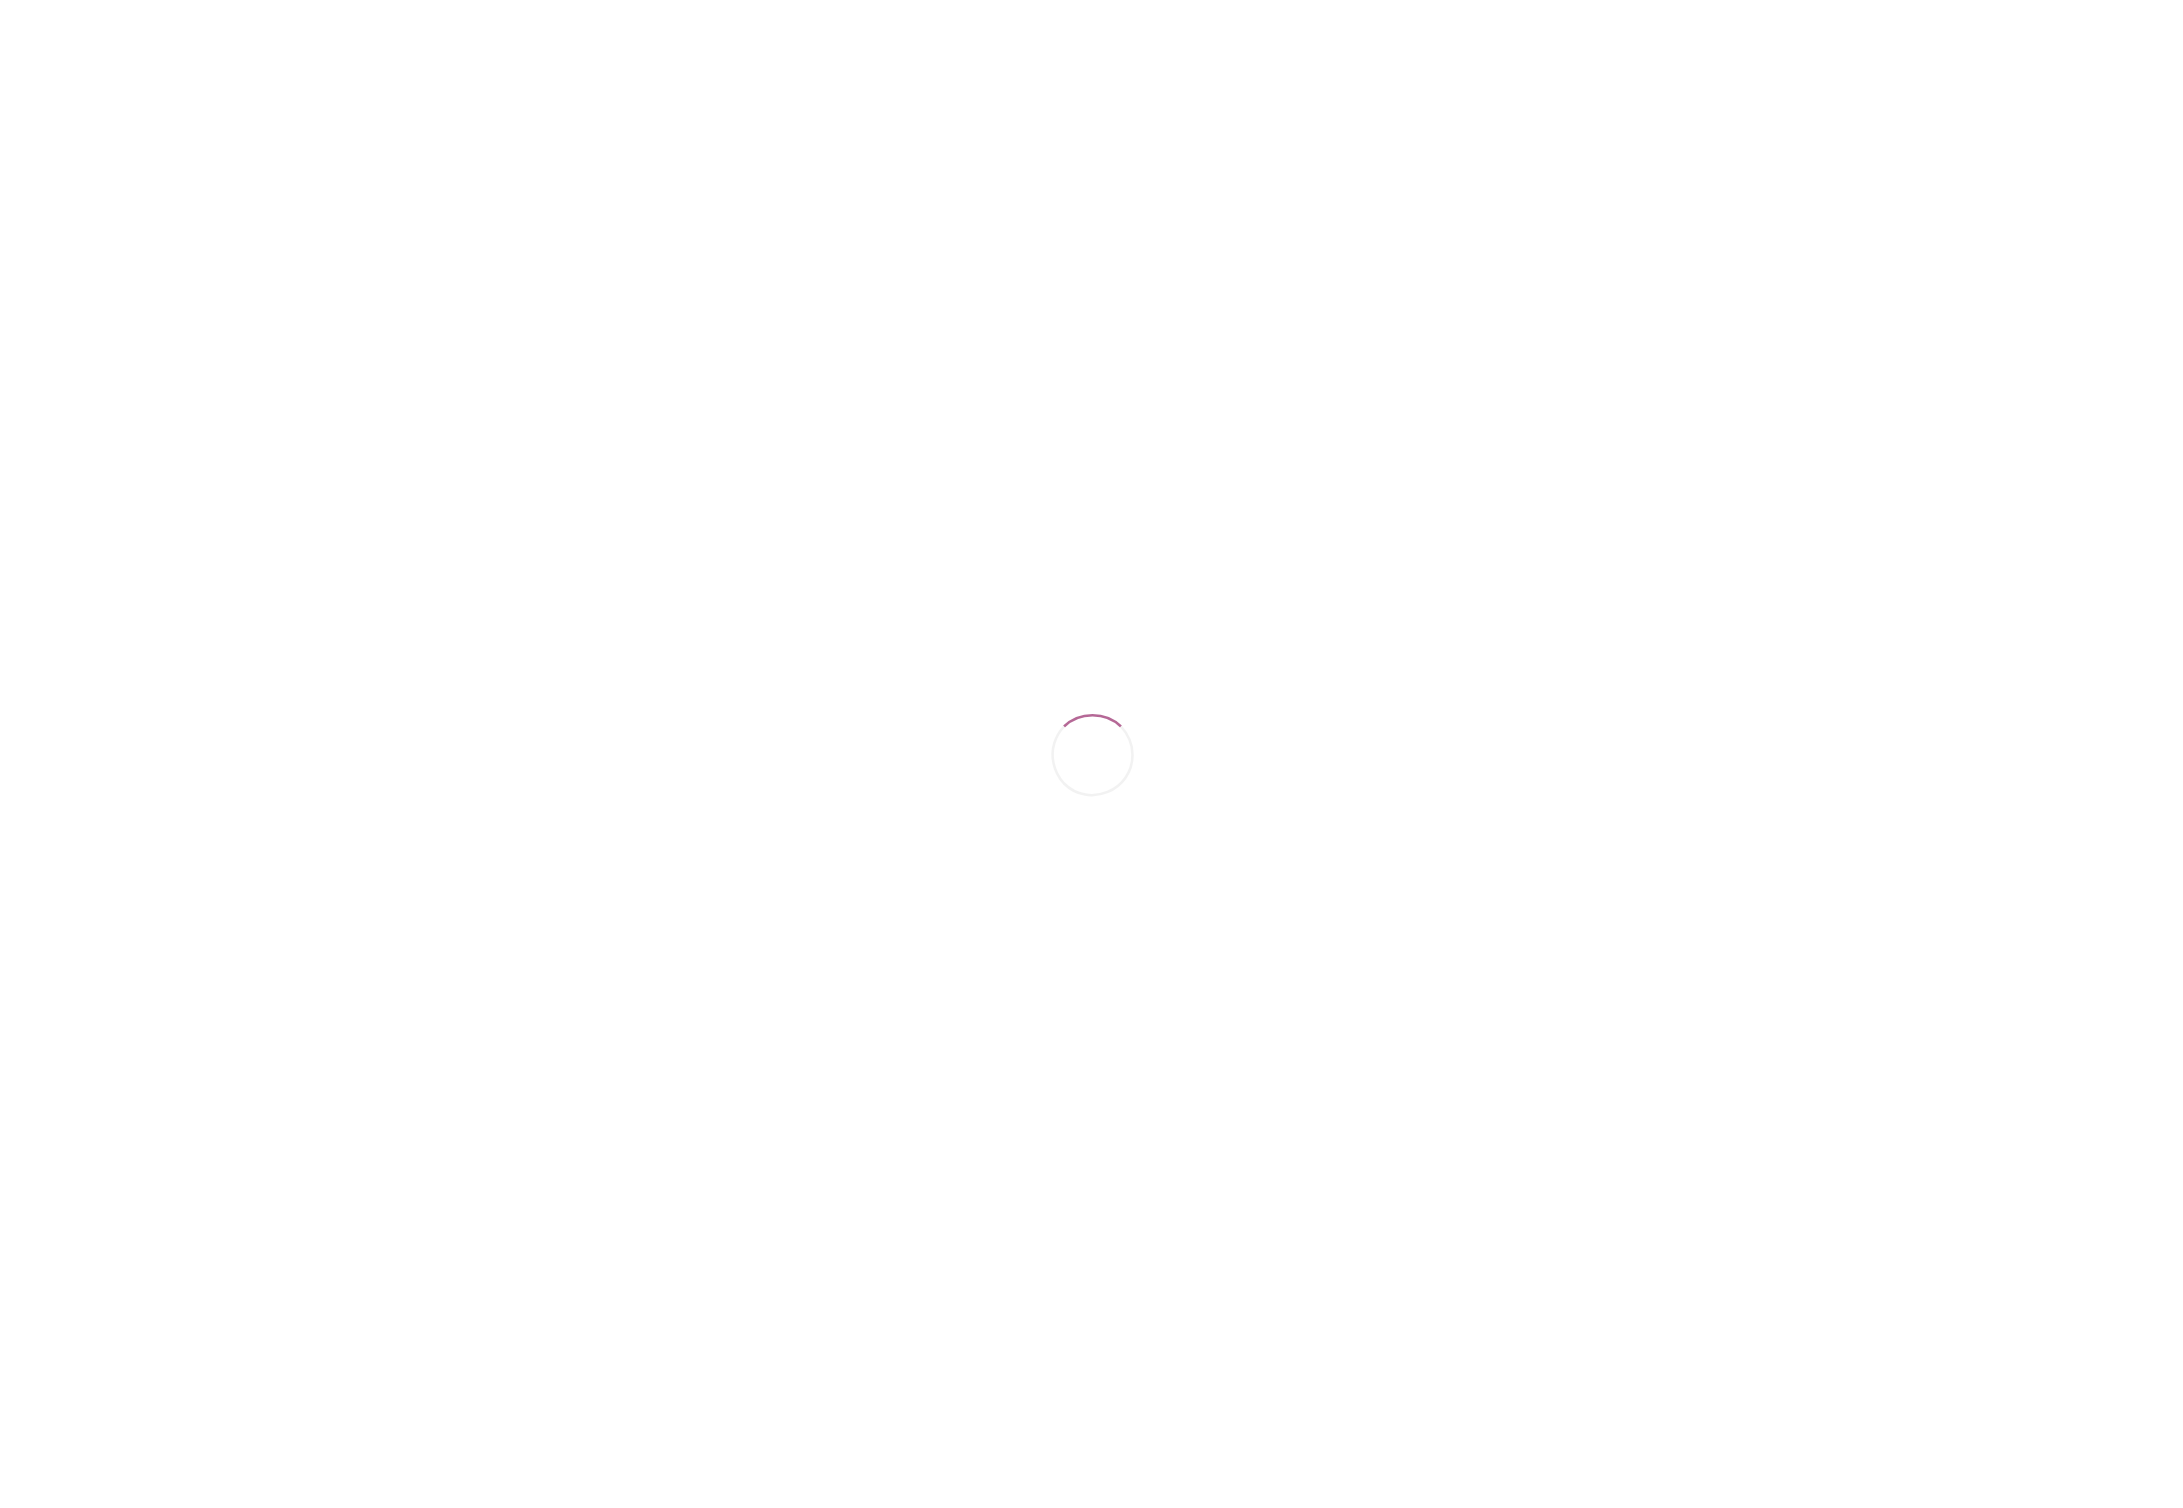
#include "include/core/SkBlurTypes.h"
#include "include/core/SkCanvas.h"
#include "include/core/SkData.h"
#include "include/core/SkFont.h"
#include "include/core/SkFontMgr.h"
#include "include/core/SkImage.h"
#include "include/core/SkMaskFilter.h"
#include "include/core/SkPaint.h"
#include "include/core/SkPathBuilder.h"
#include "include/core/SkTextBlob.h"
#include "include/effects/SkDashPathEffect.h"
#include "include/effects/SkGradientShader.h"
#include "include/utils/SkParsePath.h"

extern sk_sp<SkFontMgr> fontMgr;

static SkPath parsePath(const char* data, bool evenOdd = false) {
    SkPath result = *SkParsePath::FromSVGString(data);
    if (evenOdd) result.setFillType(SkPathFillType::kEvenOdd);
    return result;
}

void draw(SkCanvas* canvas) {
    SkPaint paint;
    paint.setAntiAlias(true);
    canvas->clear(0xFFFFFFFF);
    paint.setStroke(true);
    paint.setStrokeWidth(2.5f);
    paint.setColor(0xFFB56896);
    canvas->drawPath(parsePath("M1064 726.5C1079.5 711.5 1105.5 711.5 1121 726.5"), paint);
    paint.setColor(0xFFF2F2F2);
    canvas->drawPath(parsePath("M1121 726.5C1128 734 1132.5 744.5 1132.5 755C1132.5 790.5 1089 808.5 1064 783.5C1058.5 777.5 1055 770.5 1053.5 763C1050.5 750 1055 736 1064 726.5"), paint);
}
